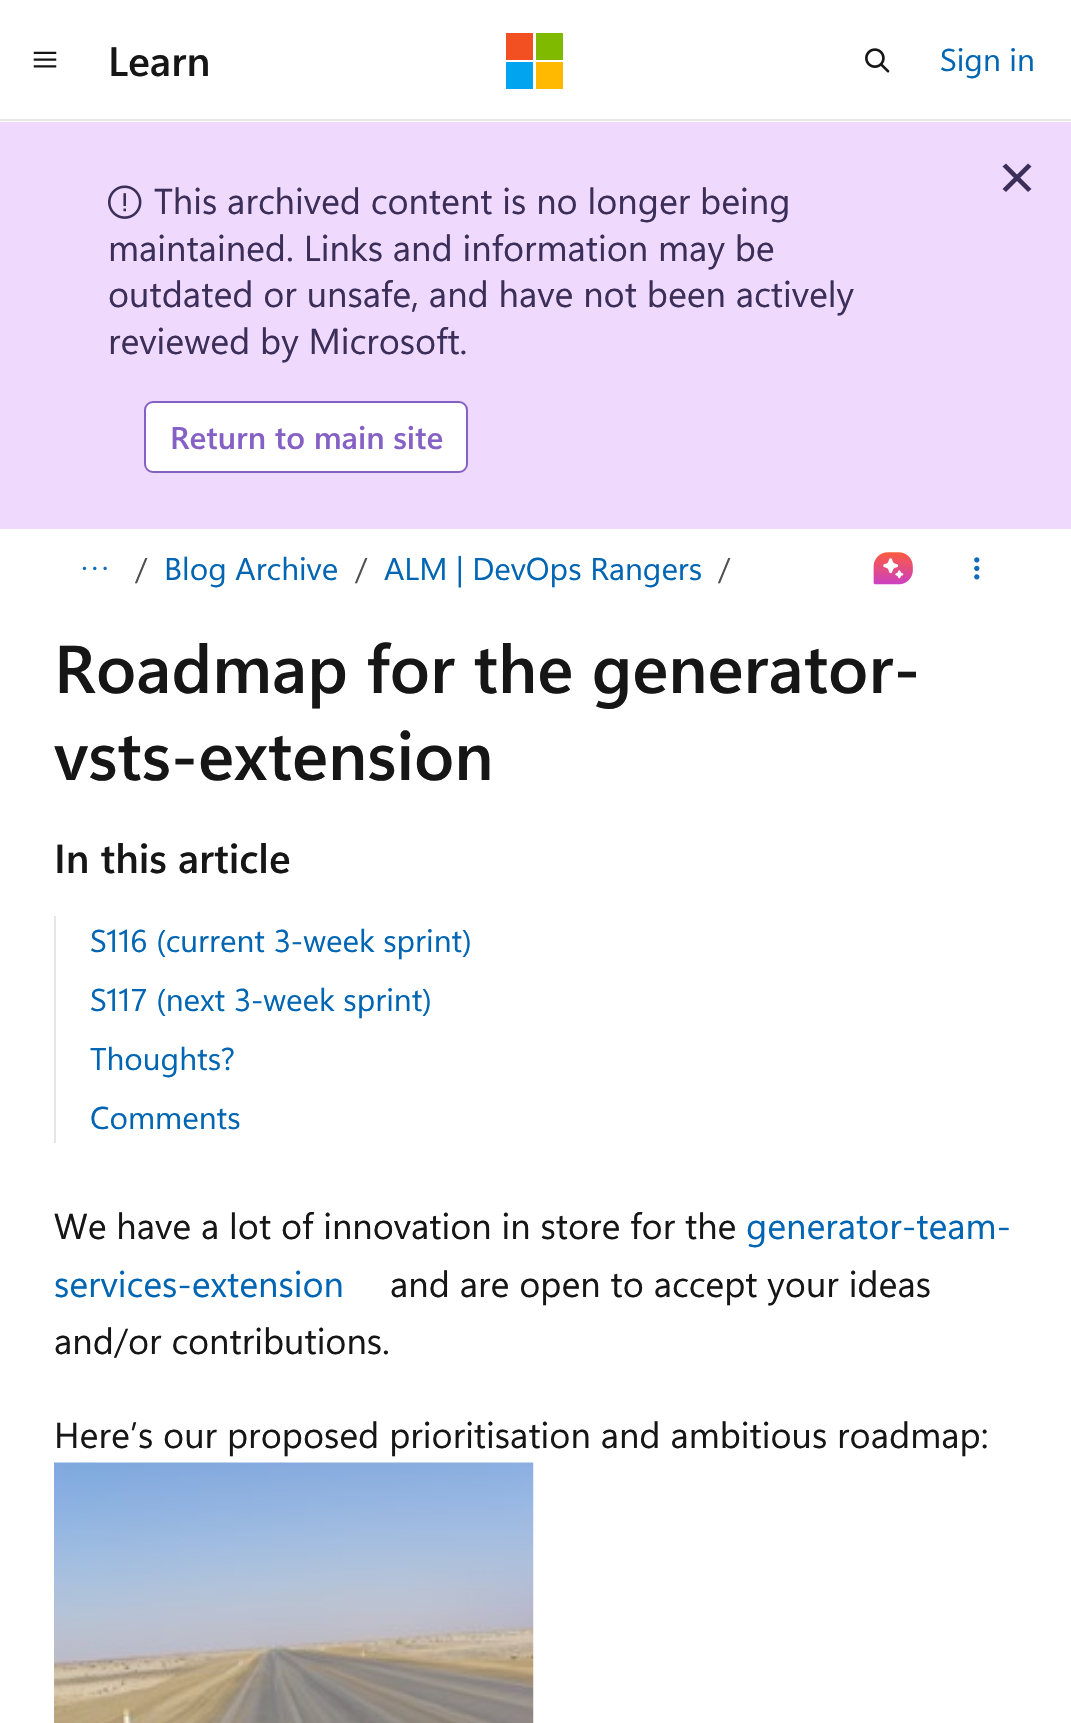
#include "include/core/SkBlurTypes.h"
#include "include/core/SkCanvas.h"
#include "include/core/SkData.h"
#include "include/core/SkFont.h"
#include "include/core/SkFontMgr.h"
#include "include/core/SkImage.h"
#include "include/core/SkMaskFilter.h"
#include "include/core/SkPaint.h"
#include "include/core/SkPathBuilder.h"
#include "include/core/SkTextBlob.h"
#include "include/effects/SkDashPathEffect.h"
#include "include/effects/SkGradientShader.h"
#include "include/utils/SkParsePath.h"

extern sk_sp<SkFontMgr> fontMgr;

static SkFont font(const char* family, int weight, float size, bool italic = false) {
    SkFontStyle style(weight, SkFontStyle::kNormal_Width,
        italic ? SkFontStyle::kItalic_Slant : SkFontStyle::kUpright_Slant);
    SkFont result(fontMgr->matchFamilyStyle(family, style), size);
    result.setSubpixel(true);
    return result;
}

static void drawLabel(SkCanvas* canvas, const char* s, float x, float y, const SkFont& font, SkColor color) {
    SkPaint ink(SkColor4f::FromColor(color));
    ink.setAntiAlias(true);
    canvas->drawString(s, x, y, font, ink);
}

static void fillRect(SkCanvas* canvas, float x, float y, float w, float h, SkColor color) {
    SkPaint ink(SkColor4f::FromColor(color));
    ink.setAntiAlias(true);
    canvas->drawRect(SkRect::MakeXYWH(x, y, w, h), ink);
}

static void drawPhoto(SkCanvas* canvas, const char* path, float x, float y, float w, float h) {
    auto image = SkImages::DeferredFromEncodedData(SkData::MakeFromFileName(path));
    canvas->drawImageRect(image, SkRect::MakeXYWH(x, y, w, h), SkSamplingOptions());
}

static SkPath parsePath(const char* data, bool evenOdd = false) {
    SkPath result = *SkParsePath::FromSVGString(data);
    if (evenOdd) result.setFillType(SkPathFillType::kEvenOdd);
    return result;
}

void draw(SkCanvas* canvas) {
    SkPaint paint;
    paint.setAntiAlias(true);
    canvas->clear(0xFFFFFFFF);
    fillRect(canvas, 0, 119, 1071, 2, 0xFFE6E6E6);
    drawPhoto(canvas, "assets/img1.png", 33, 51, 24, 17);
    SkFont font1 = font("Segoe UI", 600, 41);
    drawLabel(canvas, "Learn", 108, 76, font1, 0xFF161616);
    fillRect(canvas, 506, 33, 27, 27, 0xFFF25022);
    fillRect(canvas, 536, 33, 27, 27, 0xFF7FBA00);
    fillRect(canvas, 506, 62, 27, 27, 0xFF00A4EF);
    fillRect(canvas, 536, 62, 27, 27, 0xFFFFB900);
    drawPhoto(canvas, "assets/img2.png", 865, 48, 25, 25);
    SkFont font2 = font("Segoe UI", 400, 31.5f);
    drawLabel(canvas, "Sign in", 940, 71, font2, 0xFF0065B3);
    fillRect(canvas, 0, 122, 1071, 407, 0xFFEFD9FD);
    paint.setColor(0xFF3B2E58);
    canvas->drawPath(parsePath("M1006 163.5L1031.5 189L1028 192L1002.5 166.5Z"), paint);
    canvas->drawPath(parsePath("M1028 163.5L1031.5 166.5L1006 192L1002.5 189Z"), paint);
    drawPhoto(canvas, "assets/img3.png", 108, 185, 34, 34);
    SkFont font3 = font("Segoe UI", 400, 36);
    drawLabel(canvas, "This archived content is no longer being", 154, 214, font3, 0xFF3B2E58);
    drawLabel(canvas, "maintained. Links and information may be", 108, 261, font3, 0xFF3B2E58);
    drawLabel(canvas, "outdated or unsafe, and have not been actively", 108, 307, font3, 0xFF3B2E58);
    drawLabel(canvas, "reviewed by Microsoft.", 108, 354, font3, 0xFF3B2E58);
    paint.setColor(0xFFFFFFFF);
    canvas->drawRoundRect(SkRect::MakeXYWH(145, 402, 322, 70), 8, 8, paint);
    paint.setStroke(true);
    paint.setStrokeWidth(2);
    paint.setColor(0xFF8661C5);
    canvas->drawRoundRect(SkRect::MakeXYWH(145, 402, 322, 70), 8, 8, paint);
    SkFont font4 = font("Segoe UI", 600, 31.5f);
    drawLabel(canvas, "Return to main site", 170, 449, font4, 0xFF8661C5);
    drawPhoto(canvas, "assets/img4.png", 82, 566, 25, 5);
    drawLabel(canvas, "/", 135, 580, font2, 0xFF505050);
    drawLabel(canvas, "Blog Archive", 164, 580, font2, 0xFF0065B3);
    drawLabel(canvas, "/", 355, 580, font2, 0xFF505050);
    drawLabel(canvas, "ALM | DevOps Rangers", 384, 580, font2, 0xFF0065B3);
    drawLabel(canvas, "/", 718, 580, font2, 0xFF505050);
    drawPhoto(canvas, "assets/img5.png", 873, 552, 40, 33);
    drawPhoto(canvas, "assets/img6.png", 974, 557, 6, 23);
    SkFont font5 = font("Segoe UI", 600, 67.5f);
    drawLabel(canvas, "Roadmap for the generator-", 54, 693, font5, 0xFF161616);
    drawLabel(canvas, "vsts-extension", 54, 780, font5, 0xFF161616);
    SkFont font6 = font("Segoe UI", 600, 40.5f);
    drawLabel(canvas, "In this article", 54, 873, font6, 0xFF161616);
    fillRect(canvas, 54, 916, 2, 227, 0xFFE6E6E6);
    drawLabel(canvas, "S116 (current 3-week sprint)", 90, 952, font2, 0xFF0065B3);
    drawLabel(canvas, "S117 (next 3-week sprint)", 90, 1011, font2, 0xFF0065B3);
    drawLabel(canvas, "Thoughts?", 90, 1070, font2, 0xFF0065B3);
    drawLabel(canvas, "Comments", 90, 1129, font2, 0xFF0065B3);
    drawLabel(canvas, "We have a lot of innovation in store for the", 54, 1239, font3, 0xFF161616);
    drawLabel(canvas, "generator-team-", 746, 1239, font3, 0xFF0065B3);
    drawLabel(canvas, "services-extension", 54, 1297, font3, 0xFF0065B3);
    drawLabel(canvas, "and are open to accept your ideas", 390, 1297, font3, 0xFF161616);
    drawLabel(canvas, "and/or contributions.", 54, 1354, font3, 0xFF161616);
    drawLabel(canvas, "Here’s our proposed prioritisation and ambitious roadmap:", 54, 1448, font3, 0xFF161616);
    drawPhoto(canvas, "assets/img7.png", 54, 1462, 480, 261);
}
